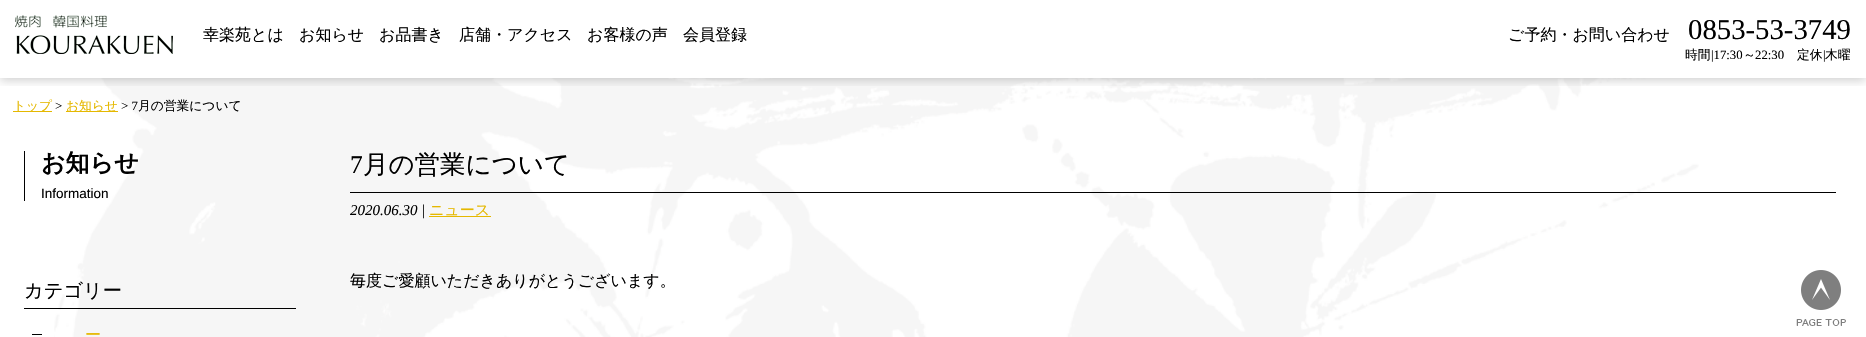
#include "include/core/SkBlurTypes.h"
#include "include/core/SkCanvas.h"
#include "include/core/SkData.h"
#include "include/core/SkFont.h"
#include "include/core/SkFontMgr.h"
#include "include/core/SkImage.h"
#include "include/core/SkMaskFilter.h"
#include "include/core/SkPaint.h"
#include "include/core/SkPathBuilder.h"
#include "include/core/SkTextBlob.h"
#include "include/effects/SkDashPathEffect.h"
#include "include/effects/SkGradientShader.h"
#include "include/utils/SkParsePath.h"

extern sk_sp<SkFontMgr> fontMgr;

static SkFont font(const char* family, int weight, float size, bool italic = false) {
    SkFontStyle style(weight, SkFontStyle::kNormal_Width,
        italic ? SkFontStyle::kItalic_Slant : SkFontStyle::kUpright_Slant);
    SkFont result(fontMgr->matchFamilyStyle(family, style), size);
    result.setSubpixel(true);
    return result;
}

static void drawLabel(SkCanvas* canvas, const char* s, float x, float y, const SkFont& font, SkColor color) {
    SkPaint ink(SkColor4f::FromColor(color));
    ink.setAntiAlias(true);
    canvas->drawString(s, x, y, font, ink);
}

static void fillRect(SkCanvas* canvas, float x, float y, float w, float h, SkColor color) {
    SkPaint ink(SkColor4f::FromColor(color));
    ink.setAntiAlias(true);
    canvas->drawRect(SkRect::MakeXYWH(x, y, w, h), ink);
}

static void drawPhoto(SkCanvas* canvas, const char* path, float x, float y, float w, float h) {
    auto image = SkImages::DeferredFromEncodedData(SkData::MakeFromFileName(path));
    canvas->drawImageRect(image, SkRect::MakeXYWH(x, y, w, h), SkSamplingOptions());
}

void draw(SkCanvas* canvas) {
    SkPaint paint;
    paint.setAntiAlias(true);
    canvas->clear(0xFFFFFFFF);
    drawPhoto(canvas, "assets/img1.png", 54, 0, 1773, 337);
    canvas->save();
    canvas->clipRect(SkRect::MakeXYWH(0, 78, 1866, 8));
    paint.setColor(0x33000000);
    paint.setMaskFilter(SkMaskFilter::MakeBlur(kNormal_SkBlurStyle, 5));
    canvas->drawRect(SkRect::MakeXYWH(0, 2, 1866, 78), paint);
    paint.setMaskFilter(nullptr);
    canvas->restore();
    fillRect(canvas, 82, 0, 1745, 78, 0xE6FFFFFF);
    drawPhoto(canvas, "assets/img2.png", 15, 15, 158, 39);
    SkFont font1 = font("WenQuanYi Zen Hei", 500, 16);
    drawLabel(canvas, "幸楽苑とは", 203, 40, font1, 0xFF000000);
    drawLabel(canvas, "お知らせ", 299, 40, font1, 0xFF000000);
    drawLabel(canvas, "お品書き", 379, 40, font1, 0xFF000000);
    drawLabel(canvas, "店舗・アクセス", 459, 40, font1, 0xFF000000);
    drawLabel(canvas, "お客様の声", 587, 40, font1, 0xFF000000);
    drawLabel(canvas, "会員登録", 683, 40, font1, 0xFF000000);
    drawLabel(canvas, "ご予約・お問い合わせ", 1508, 40, font1, 0xFF000000);
    SkFont font2 = font("Liberation Serif", 400, 28.75f);
    drawLabel(canvas, "0853-53-3749", 1688, 39, font2, 0xFF000000);
    SkFont font3 = font("WenQuanYi Zen Hei", 500, 12.75f);
    drawLabel(canvas, "時間", 1685, 59, font3, 0xFF000000);
    SkFont font4 = font("Liberation Serif", 400, 12.75f);
    drawLabel(canvas, "|17:30", 1711, 59, font4, 0xFF000000);
    drawLabel(canvas, "～", 1743, 59, font3, 0xFF000000);
    drawLabel(canvas, "22:30", 1755, 59, font4, 0xFF000000);
    drawLabel(canvas, "定休", 1797, 59, font3, 0xFF000000);
    drawLabel(canvas, "|", 1823, 59, font4, 0xFF000000);
    drawLabel(canvas, "木曜", 1825, 59, font3, 0xFF000000);
    fillRect(canvas, 13, 111, 39, 1, 0xFFE5B800);
    drawLabel(canvas, "トップ", 13, 110, font3, 0xFFE5B800);
    drawLabel(canvas, ">", 55, 110, font4, 0xFF000000);
    fillRect(canvas, 66, 111, 52, 1, 0xFFE5B800);
    drawLabel(canvas, "お知らせ", 66, 110, font3, 0xFFE5B800);
    drawLabel(canvas, "> 7", 121, 110, font4, 0xFF000000);
    drawLabel(canvas, "月の営業について", 138, 110, font3, 0xFF000000);
    fillRect(canvas, 24, 151, 1, 50, 0xFF000000);
    SkFont font5 = font("WenQuanYi Zen Hei", 700, 24);
    drawLabel(canvas, "お知らせ", 41, 171, font5, 0xFF000000);
    SkFont font6 = font("Liberation Sans", 400, 13.5f);
    drawLabel(canvas, "Information", 41, 198, font6, 0xFF000000);
    fillRect(canvas, 24, 308, 272, 1, 0xFF000000);
    SkFont font7 = font("WenQuanYi Zen Hei", 500, 19.25f);
    drawLabel(canvas, "カテゴリー", 24, 297, font7, 0xFF000000);
    fillRect(canvas, 32, 334, 10, 1, 0xFF000000);
    drawLabel(canvas, "ー", 85, 340, font1, 0xFFE5B800);
    fillRect(canvas, 350, 192, 1486, 1, 0xFF000000);
    SkFont font8 = font("Liberation Serif", 400, 25.5f);
    drawLabel(canvas, "7", 350, 173, font8, 0xFF000000);
    SkFont font9 = font("WenQuanYi Zen Hei", 500, 25.5f);
    drawLabel(canvas, "月の営業について", 363, 173, font9, 0xFF000000);
    SkFont font10 = font("Liberation Serif", 400, 15, true);
    drawLabel(canvas, "2020.06.30", 350, 215, font10, 0xFF000000);
    SkFont font11 = font("Liberation Serif", 400, 15);
    drawLabel(canvas, "|", 422, 215, font11, 0xFF000000);
    SkFont font12 = font("WenQuanYi Zen Hei", 500, 15);
    drawLabel(canvas, "ニュース", 429, 215, font12, 0xFFE5B800);
    fillRect(canvas, 429, 216, 62, 1, 0xFFE5B800);
    drawLabel(canvas, "毎度ご愛顧いただきありがとうございます。", 350, 286, font1, 0xFF000000);
    drawPhoto(canvas, "assets/img3.png", 1796, 270, 50, 56);
}
